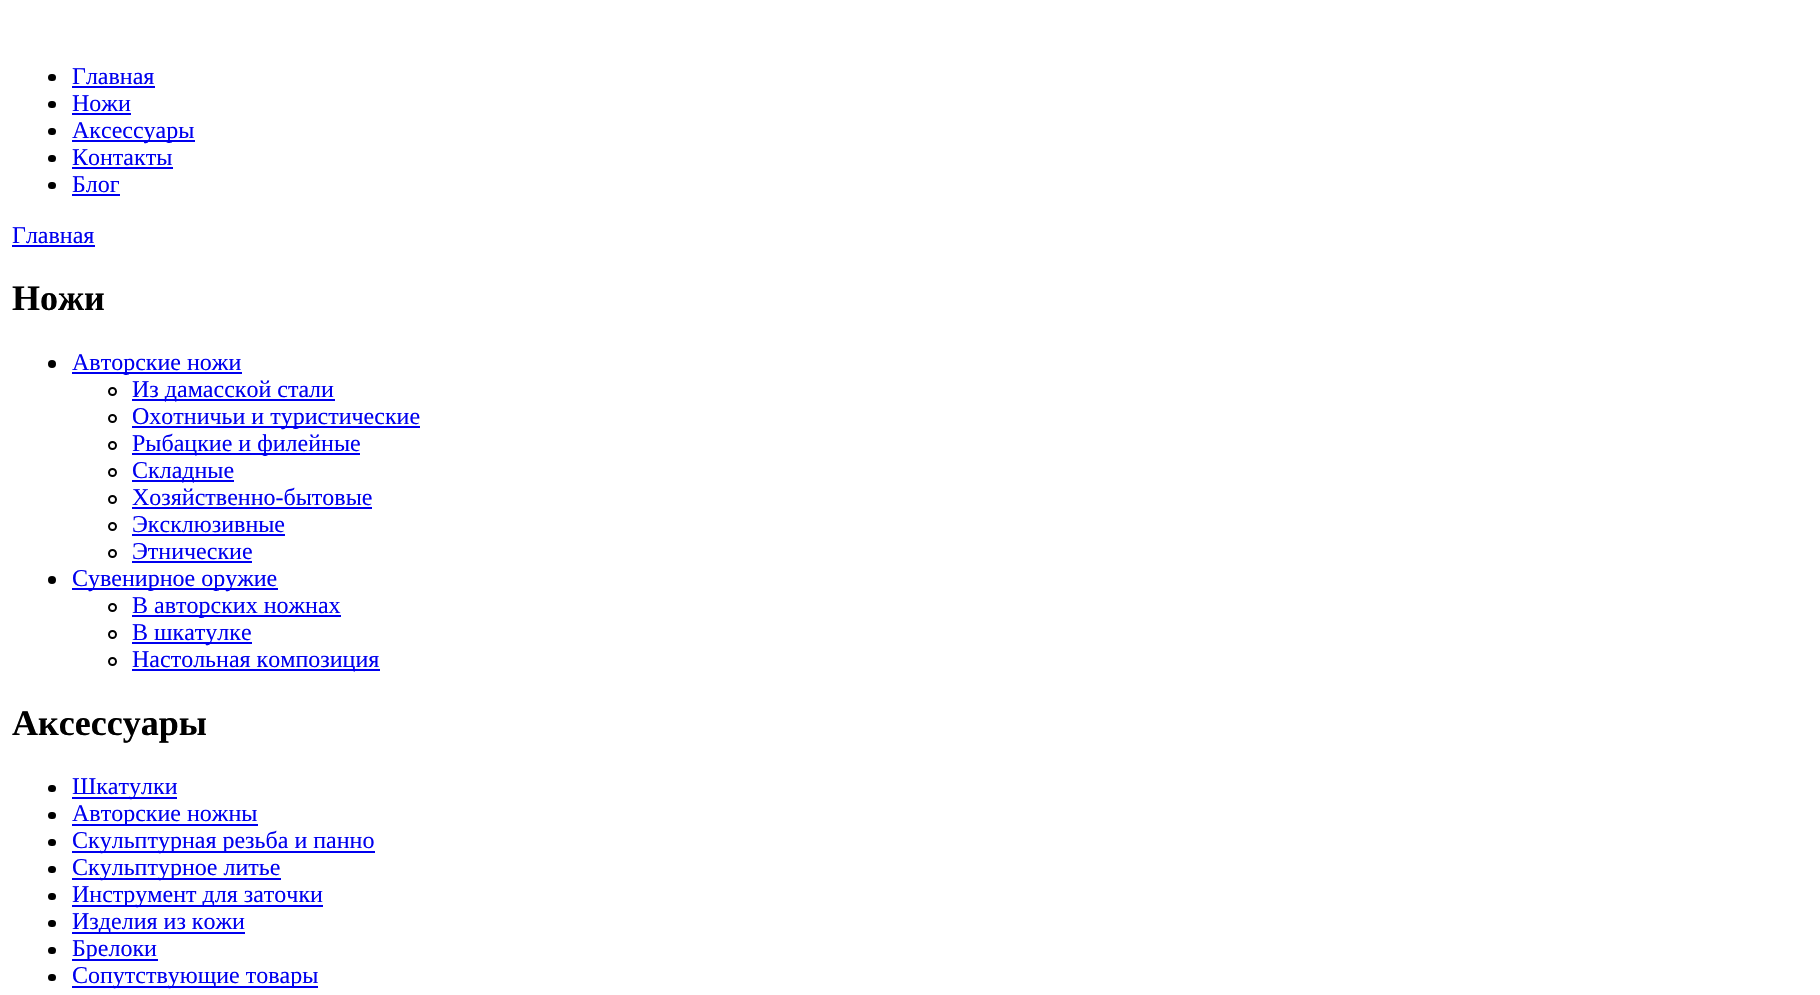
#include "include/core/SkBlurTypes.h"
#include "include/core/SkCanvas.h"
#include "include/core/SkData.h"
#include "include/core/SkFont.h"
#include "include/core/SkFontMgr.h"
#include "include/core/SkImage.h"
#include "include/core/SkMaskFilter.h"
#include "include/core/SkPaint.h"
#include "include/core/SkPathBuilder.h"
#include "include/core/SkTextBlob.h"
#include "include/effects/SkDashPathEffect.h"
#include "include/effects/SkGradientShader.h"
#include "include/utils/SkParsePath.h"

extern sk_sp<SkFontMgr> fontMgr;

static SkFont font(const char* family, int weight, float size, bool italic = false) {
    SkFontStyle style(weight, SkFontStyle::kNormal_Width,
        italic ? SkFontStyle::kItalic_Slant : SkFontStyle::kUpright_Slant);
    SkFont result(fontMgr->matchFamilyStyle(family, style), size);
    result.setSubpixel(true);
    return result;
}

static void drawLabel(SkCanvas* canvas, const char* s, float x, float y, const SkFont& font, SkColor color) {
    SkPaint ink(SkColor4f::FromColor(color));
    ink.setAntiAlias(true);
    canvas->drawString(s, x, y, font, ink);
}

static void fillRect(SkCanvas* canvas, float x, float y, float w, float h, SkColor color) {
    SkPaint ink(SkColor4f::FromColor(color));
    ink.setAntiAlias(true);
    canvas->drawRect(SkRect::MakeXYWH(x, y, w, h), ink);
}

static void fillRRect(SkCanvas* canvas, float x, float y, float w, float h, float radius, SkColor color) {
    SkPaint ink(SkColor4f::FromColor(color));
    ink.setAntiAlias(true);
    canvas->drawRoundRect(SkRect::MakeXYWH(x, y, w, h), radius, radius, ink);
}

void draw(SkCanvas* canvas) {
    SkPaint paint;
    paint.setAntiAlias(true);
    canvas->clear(0xFFFFFFFF);
    fillRRect(canvas, 48, 74, 8, 7, 3.5f, 0xFF000000);
    SkFont font1 = font("Liberation Serif", 400, 24);
    drawLabel(canvas, "Главная", 72, 84, font1, 0xFF0000EE);
    fillRect(canvas, 72, 86, 83, 2, 0xFF0000EE);
    fillRRect(canvas, 48, 101, 8, 7, 3.5f, 0xFF000000);
    drawLabel(canvas, "Ножи", 72, 111, font1, 0xFF0000EE);
    fillRect(canvas, 72, 113, 59, 2, 0xFF0000EE);
    fillRRect(canvas, 48, 128, 8, 7, 3.5f, 0xFF000000);
    fillRect(canvas, 72, 140, 123, 2, 0xFF0000EE);
    drawLabel(canvas, "Аксессуары", 72, 138, font1, 0xFF0000EE);
    fillRRect(canvas, 48, 155, 8, 7, 3.5f, 0xFF000000);
    drawLabel(canvas, "Контакты", 72, 165, font1, 0xFF0000EE);
    fillRect(canvas, 72, 167, 101, 2, 0xFF0000EE);
    fillRRect(canvas, 48, 182, 8, 7, 3.5f, 0xFF000000);
    drawLabel(canvas, "Блог", 72, 192, font1, 0xFF0000EE);
    fillRect(canvas, 72, 194, 48, 2, 0xFF0000EE);
    drawLabel(canvas, "Главная", 12, 243, font1, 0xFF0000EE);
    fillRect(canvas, 12, 245, 83, 2, 0xFF0000EE);
    SkFont font2 = font("Liberation Serif", 700, 36);
    drawLabel(canvas, "Ножи", 12, 310, font2, 0xFF000000);
    paint.setColor(0xFF000000);
    canvas->drawCircle(52, 364, 4, paint);
    fillRect(canvas, 72, 372, 170, 2, 0xFF0000EE);
    drawLabel(canvas, "Авторские ножи", 72, 370, font1, 0xFF0000EE);
    paint.setStroke(true);
    paint.setStrokeWidth(2);
    canvas->drawCircle(112.5f, 391.5f, 3.5f, paint);
    fillRect(canvas, 132, 399, 203, 2, 0xFF0000EE);
    drawLabel(canvas, "Из дамасской стали", 132, 397, font1, 0xFF0000EE);
    canvas->drawCircle(112.5f, 418.5f, 3.5f, paint);
    fillRect(canvas, 132, 426, 288, 2, 0xFF0000EE);
    drawLabel(canvas, "Охотничьи и туристические", 132, 424, font1, 0xFF0000EE);
    canvas->drawCircle(112.5f, 445.5f, 3.5f, paint);
    fillRect(canvas, 132, 453, 228, 2, 0xFF0000EE);
    drawLabel(canvas, "Рыбацкие и филейные", 132, 451, font1, 0xFF0000EE);
    canvas->drawCircle(112.5f, 472.5f, 3.5f, paint);
    fillRect(canvas, 132, 480, 102, 2, 0xFF0000EE);
    drawLabel(canvas, "Складные", 132, 478, font1, 0xFF0000EE);
    canvas->drawCircle(112.5f, 499.5f, 3.5f, paint);
    drawLabel(canvas, "Хозяйственно-бытовые", 132, 505, font1, 0xFF0000EE);
    fillRect(canvas, 132, 507, 240, 2, 0xFF0000EE);
    canvas->drawCircle(112.5f, 526.5f, 3.5f, paint);
    drawLabel(canvas, "Эксклюзивные", 132, 532, font1, 0xFF0000EE);
    fillRect(canvas, 132, 534, 153, 2, 0xFF0000EE);
    canvas->drawCircle(112.5f, 553.5f, 3.5f, paint);
    drawLabel(canvas, "Этнические", 132, 559, font1, 0xFF0000EE);
    fillRect(canvas, 132, 561, 120, 2, 0xFF0000EE);
    paint.setStroke(false);
    canvas->drawCircle(52, 580, 4, paint);
    fillRect(canvas, 72, 588, 206, 2, 0xFF0000EE);
    drawLabel(canvas, "Сувенирное оружие", 72, 586, font1, 0xFF0000EE);
    paint.setStroke(true);
    canvas->drawCircle(112.5f, 607.5f, 3.5f, paint);
    fillRect(canvas, 132, 615, 209, 2, 0xFF0000EE);
    drawLabel(canvas, "В авторских ножнах", 132, 613, font1, 0xFF0000EE);
    canvas->drawCircle(112.5f, 634.5f, 3.5f, paint);
    fillRect(canvas, 132, 642, 120, 2, 0xFF0000EE);
    drawLabel(canvas, "В шкатулке", 132, 640, font1, 0xFF0000EE);
    canvas->drawCircle(112.5f, 661.5f, 3.5f, paint);
    fillRect(canvas, 132, 669, 248, 2, 0xFF0000EE);
    drawLabel(canvas, "Настольная композиция", 132, 667, font1, 0xFF0000EE);
    drawLabel(canvas, "Аксессуары", 12, 735, font2, 0xFF000000);
    fillRRect(canvas, 48, 785, 8, 7, 3.5f, 0xFF000000);
    fillRect(canvas, 72, 797, 105, 2, 0xFF0000EE);
    drawLabel(canvas, "Шкатулки", 72, 794, font1, 0xFF0000EE);
    fillRRect(canvas, 48, 812, 8, 7, 3.5f, 0xFF000000);
    fillRect(canvas, 72, 824, 186, 2, 0xFF0000EE);
    drawLabel(canvas, "Авторские ножны", 72, 821, font1, 0xFF0000EE);
    fillRRect(canvas, 48, 839, 8, 7, 3.5f, 0xFF000000);
    fillRect(canvas, 72, 851, 303, 2, 0xFF0000EE);
    drawLabel(canvas, "Скульптурная резьба и панно", 72, 848, font1, 0xFF0000EE);
    fillRRect(canvas, 48, 866, 8, 7, 3.5f, 0xFF000000);
    fillRect(canvas, 72, 878, 209, 2, 0xFF0000EE);
    drawLabel(canvas, "Скульптурное литье", 72, 875, font1, 0xFF0000EE);
    fillRRect(canvas, 48, 893, 8, 7, 3.5f, 0xFF000000);
    fillRect(canvas, 72, 905, 251, 2, 0xFF0000EE);
    drawLabel(canvas, "Инструмент для заточки", 72, 902, font1, 0xFF0000EE);
    fillRRect(canvas, 48, 920, 8, 7, 3.5f, 0xFF000000);
    fillRect(canvas, 72, 932, 173, 2, 0xFF0000EE);
    drawLabel(canvas, "Изделия из кожи", 72, 929, font1, 0xFF0000EE);
    fillRRect(canvas, 48, 947, 8, 7, 3.5f, 0xFF000000);
    fillRect(canvas, 72, 959, 86, 2, 0xFF0000EE);
    drawLabel(canvas, "Брелоки", 72, 956, font1, 0xFF0000EE);
    fillRRect(canvas, 48, 974, 8, 7, 3.5f, 0xFF000000);
    fillRect(canvas, 72, 986, 246, 2, 0xFF0000EE);
    drawLabel(canvas, "Сопутствующие товары", 72, 983, font1, 0xFF0000EE);
}
